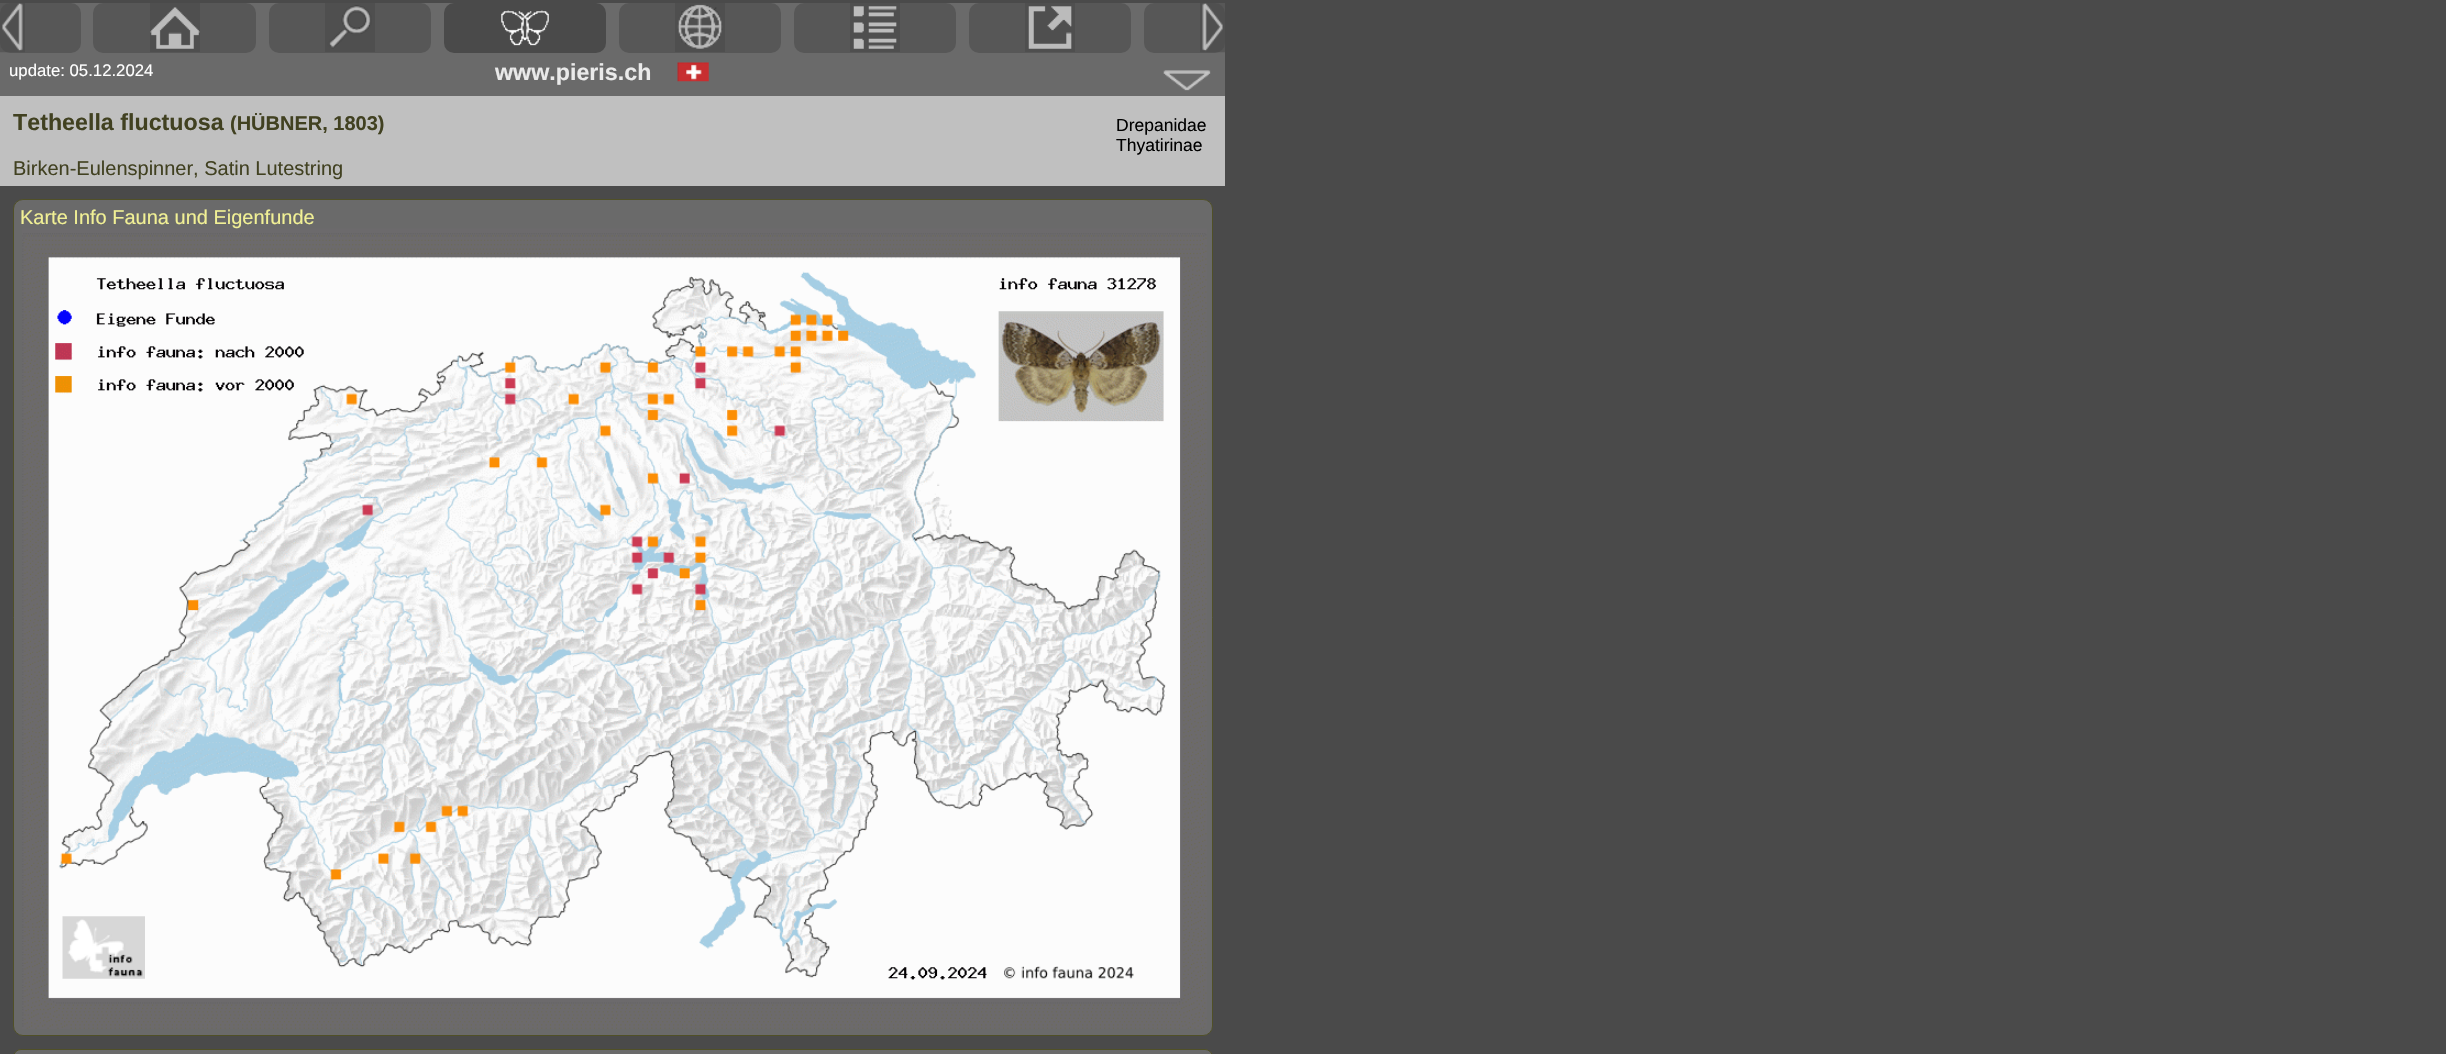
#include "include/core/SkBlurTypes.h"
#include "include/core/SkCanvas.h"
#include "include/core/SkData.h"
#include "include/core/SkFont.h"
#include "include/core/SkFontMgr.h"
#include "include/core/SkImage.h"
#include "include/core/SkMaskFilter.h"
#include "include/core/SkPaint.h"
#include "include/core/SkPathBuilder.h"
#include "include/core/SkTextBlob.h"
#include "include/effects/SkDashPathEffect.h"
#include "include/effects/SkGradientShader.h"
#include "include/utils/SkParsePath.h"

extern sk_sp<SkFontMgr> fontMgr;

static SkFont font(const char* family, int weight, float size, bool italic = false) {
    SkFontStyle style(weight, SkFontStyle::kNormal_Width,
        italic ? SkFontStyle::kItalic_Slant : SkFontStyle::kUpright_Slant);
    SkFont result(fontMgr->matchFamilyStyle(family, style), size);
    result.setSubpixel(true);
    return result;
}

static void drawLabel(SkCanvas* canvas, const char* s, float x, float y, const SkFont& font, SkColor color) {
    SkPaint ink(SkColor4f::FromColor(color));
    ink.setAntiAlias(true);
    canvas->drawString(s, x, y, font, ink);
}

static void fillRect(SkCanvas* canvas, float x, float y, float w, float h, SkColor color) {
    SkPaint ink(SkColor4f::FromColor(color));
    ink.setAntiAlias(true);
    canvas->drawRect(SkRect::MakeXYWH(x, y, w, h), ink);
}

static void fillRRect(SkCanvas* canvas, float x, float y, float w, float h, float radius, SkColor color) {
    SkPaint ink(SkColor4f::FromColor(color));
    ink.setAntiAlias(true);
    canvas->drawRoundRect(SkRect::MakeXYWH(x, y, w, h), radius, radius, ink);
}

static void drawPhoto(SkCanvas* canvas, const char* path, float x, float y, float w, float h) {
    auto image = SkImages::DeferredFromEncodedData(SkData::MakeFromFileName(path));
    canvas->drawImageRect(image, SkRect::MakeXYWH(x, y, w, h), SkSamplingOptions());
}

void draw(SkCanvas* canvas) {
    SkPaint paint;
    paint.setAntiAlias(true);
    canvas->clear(0xFF4A4A4A);
    fillRect(canvas, 0, 3, 1225, 93, 0xFF6A6A6A);
    fillRRect(canvas, 0, 3, 81, 50, 10, 0xFF575757);
    drawPhoto(canvas, "assets/img1.png", 0, 3, 25, 50);
    fillRRect(canvas, 93, 3, 163, 50, 10, 0xFF575757);
    drawPhoto(canvas, "assets/img2.png", 150, 3, 50, 49);
    fillRRect(canvas, 269, 3, 162, 50, 10, 0xFF575757);
    drawPhoto(canvas, "assets/img3.png", 325, 3, 50, 49);
    fillRRect(canvas, 444, 3, 162, 50, 10, 0xFF4A4A4A);
    drawPhoto(canvas, "assets/img4.png", 501, 10, 48, 36);
    fillRRect(canvas, 619, 3, 162, 50, 10, 0xFF575757);
    drawPhoto(canvas, "assets/img5.png", 675, 3, 50, 49);
    fillRRect(canvas, 794, 3, 162, 50, 10, 0xFF575757);
    drawPhoto(canvas, "assets/img6.png", 850, 3, 50, 49);
    fillRRect(canvas, 969, 3, 162, 50, 10, 0xFF575757);
    drawPhoto(canvas, "assets/img7.png", 1025, 3, 50, 49);
    fillRRect(canvas, 1144, 3, 81, 50, 10, 0xFF575757);
    drawPhoto(canvas, "assets/img8.png", 1200, 3, 25, 50);
    SkFont font1 = font("Liberation Sans", 400, 16.75f);
    drawLabel(canvas, "update: 05.12.2024", 9, 76, font1, 0xFFFFFFFF);
    SkFont font2 = font("Liberation Sans", 700, 23.25f);
    drawLabel(canvas, "www.pieris.ch", 495, 80, font2, 0xFFEAEAEA);
    drawPhoto(canvas, "assets/img9.png", 677, 62, 32, 20);
    drawPhoto(canvas, "assets/img10.png", 1163, 70, 48, 21);
    fillRect(canvas, 0, 96, 1225, 90, 0xFFC0C0C0);
    drawLabel(canvas, "Tetheella fluctuosa", 13, 130, font2, 0xFF414121);
    SkFont font3 = font("Liberation Sans", 700, 20);
    drawLabel(canvas, "(HÜBNER, 1803)", 230, 130, font3, 0xFF414121);
    SkFont font4 = font("Liberation Sans", 400, 17.5f);
    drawLabel(canvas, "Drepanidae", 1116, 131, font4, 0xFF000000);
    drawLabel(canvas, "Thyatirinae", 1116, 151, font4, 0xFF000000);
    SkFont font5 = font("Liberation Sans", 400, 20);
    drawLabel(canvas, "Birken-Eulenspinner, Satin Lutestring", 13, 175, font5, 0xFF414121);
    paint.setColor(0xFF6A6A6A);
    canvas->drawRoundRect(SkRect::MakeXYWH(13.5f, 199.5f, 1199, 836), 9.5f, 9.5f, paint);
    paint.setStroke(true);
    paint.setStrokeWidth(1);
    paint.setColor(0xFF505027);
    canvas->drawRoundRect(SkRect::MakeXYWH(13.5f, 199.5f, 1199, 836), 9.5f, 9.5f, paint);
    drawLabel(canvas, "Karte Info Fauna und Eigenfunde", 20, 224, font5, 0xFFF1F095);
    drawPhoto(canvas, "assets/img11.png", 22, 228, 1185, 801);
    drawPhoto(canvas, "assets/img12.png", 62, 916, 83, 63);
    paint.setStroke(false);
    paint.setColor(0xFF6A6A6A);
    canvas->drawRoundRect(SkRect::MakeXYWH(13.5f, 1049.5f, 1199, 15), 9.5f, 9.5f, paint);
    paint.setStroke(true);
    paint.setColor(0xFF505027);
    canvas->drawRoundRect(SkRect::MakeXYWH(13.5f, 1049.5f, 1199, 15), 9.5f, 9.5f, paint);
}
